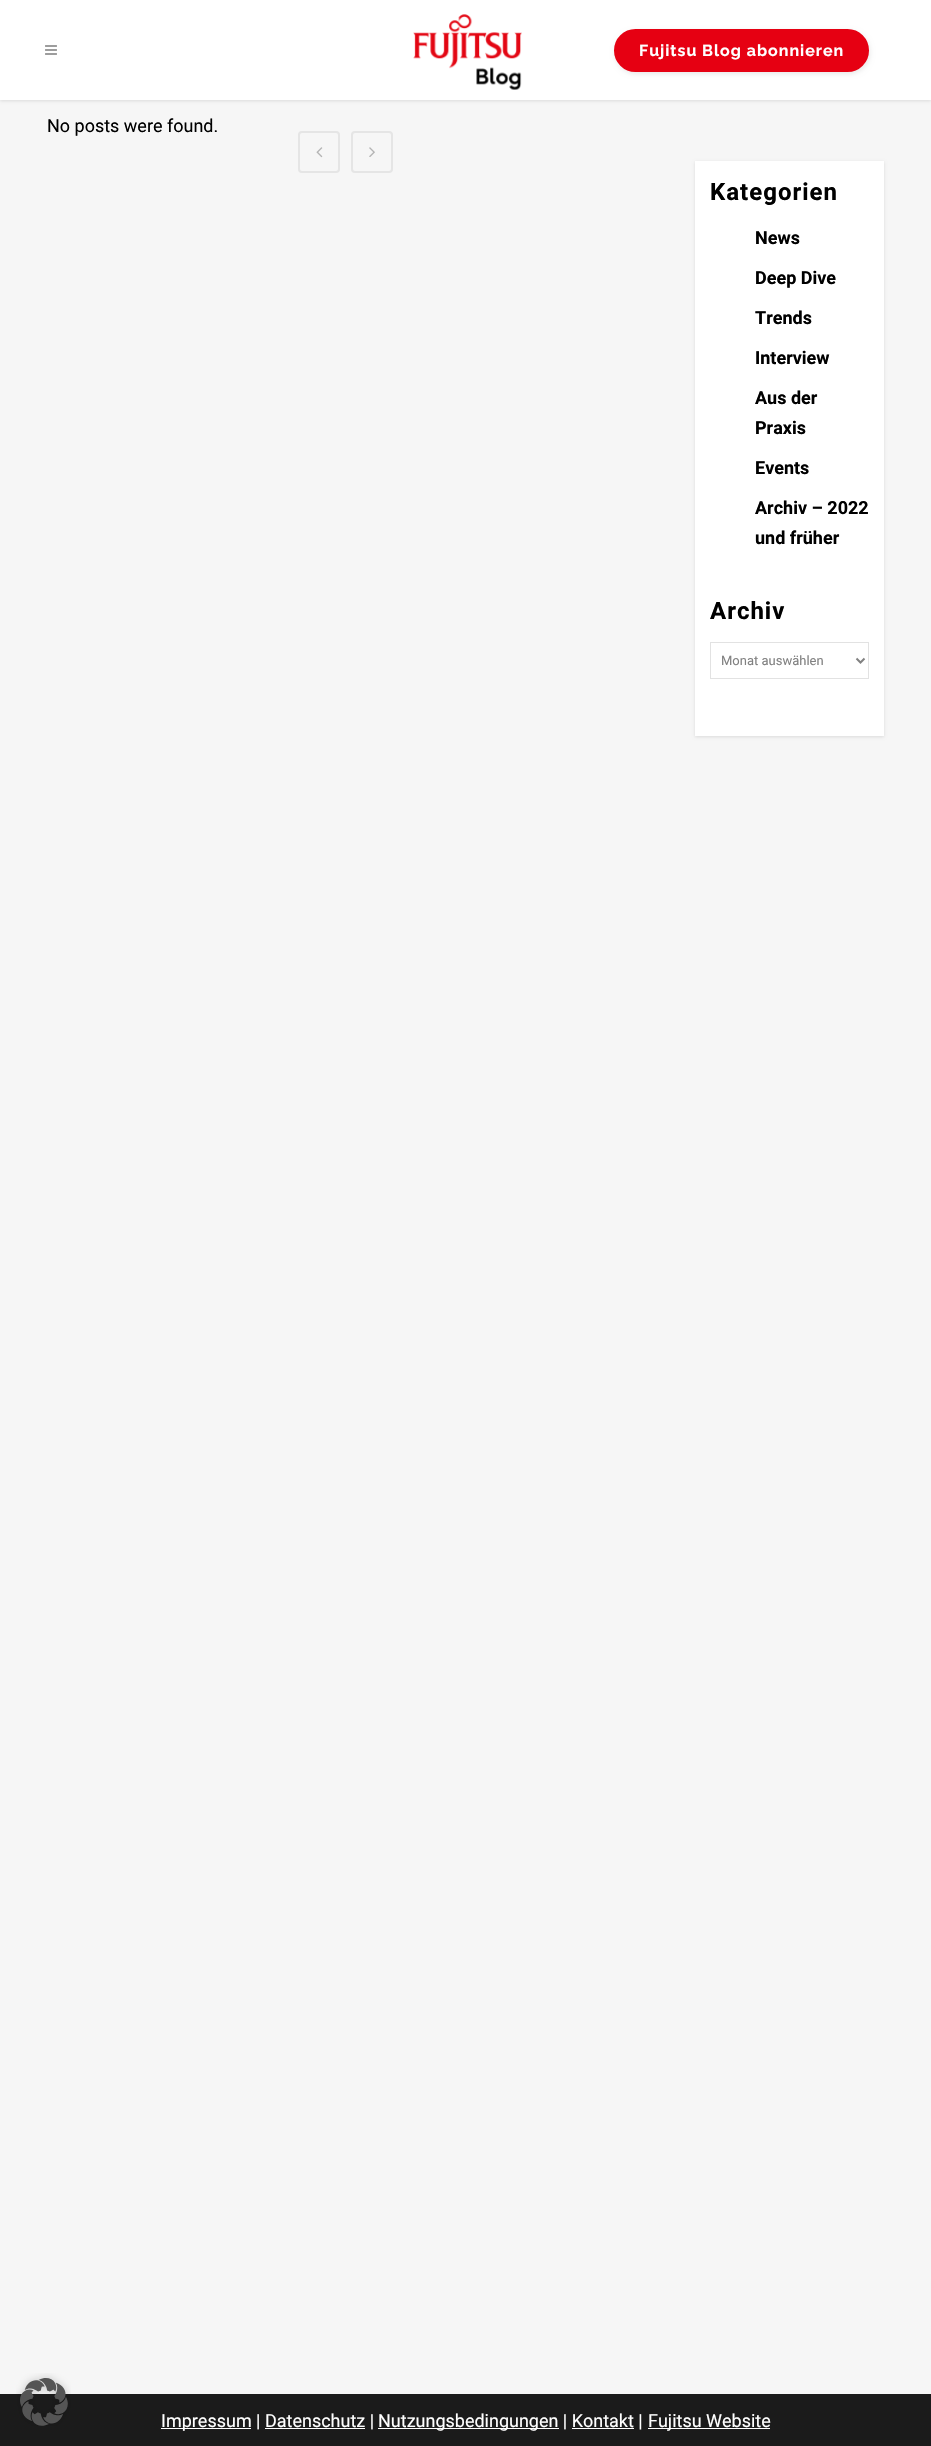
#include "include/core/SkBlurTypes.h"
#include "include/core/SkCanvas.h"
#include "include/core/SkData.h"
#include "include/core/SkFont.h"
#include "include/core/SkFontMgr.h"
#include "include/core/SkImage.h"
#include "include/core/SkMaskFilter.h"
#include "include/core/SkPaint.h"
#include "include/core/SkPathBuilder.h"
#include "include/core/SkTextBlob.h"
#include "include/effects/SkDashPathEffect.h"
#include "include/effects/SkGradientShader.h"
#include "include/utils/SkParsePath.h"

extern sk_sp<SkFontMgr> fontMgr;

static SkFont font(const char* family, int weight, float size, bool italic = false) {
    SkFontStyle style(weight, SkFontStyle::kNormal_Width,
        italic ? SkFontStyle::kItalic_Slant : SkFontStyle::kUpright_Slant);
    SkFont result(fontMgr->matchFamilyStyle(family, style), size);
    result.setSubpixel(true);
    return result;
}

static void drawLabel(SkCanvas* canvas, const char* s, float x, float y, const SkFont& font, SkColor color) {
    SkPaint ink(SkColor4f::FromColor(color));
    ink.setAntiAlias(true);
    canvas->drawString(s, x, y, font, ink);
}

static void drawTracked(SkCanvas* canvas, const char* s, float x, float y, const SkFont& font, const SkPaint& ink, float letter, float word) {
    std::vector<SkGlyphID> glyphs(font.countText(s, strlen(s), SkTextEncoding::kUTF8));
    std::vector<float> xs(glyphs.size());
    font.textToGlyphs(s, strlen(s), SkTextEncoding::kUTF8, glyphs);
    font.getXPos(glyphs, xs, x);
    float extra = 0;
    for (size_t i = 0; i < glyphs.size(); i++) {
        xs[i] += extra;
        extra += letter + word * (glyphs[i] == font.unicharToGlyph(' '));
    }
    canvas->drawTextBlob(SkTextBlob::MakeFromPosHGlyphs(glyphs, xs, y, font), 0, 0, ink);
}

static void fillRect(SkCanvas* canvas, float x, float y, float w, float h, SkColor color) {
    SkPaint ink(SkColor4f::FromColor(color));
    ink.setAntiAlias(true);
    canvas->drawRect(SkRect::MakeXYWH(x, y, w, h), ink);
}

static void drawPhoto(SkCanvas* canvas, const char* path, float x, float y, float w, float h) {
    auto image = SkImages::DeferredFromEncodedData(SkData::MakeFromFileName(path));
    canvas->drawImageRect(image, SkRect::MakeXYWH(x, y, w, h), SkSamplingOptions());
}

static SkPath parsePath(const char* data, bool evenOdd = false) {
    SkPath result = *SkParsePath::FromSVGString(data);
    if (evenOdd) result.setFillType(SkPathFillType::kEvenOdd);
    return result;
}

void draw(SkCanvas* canvas) {
    SkPaint paint;
    paint.setAntiAlias(true);
    canvas->clear(0xFFF6F6F6);
    fillRect(canvas, 0, 2394, 931, 52, 0xFF1B1B1B);
    drawPhoto(canvas, "assets/img1.png", 16, 2373, 55, 53);
    paint.setColor(0x1C000000);
    paint.setMaskFilter(SkMaskFilter::MakeBlur(kNormal_SkBlurStyle, 1.5f));
    canvas->drawRect(SkRect::MakeXYWH(0, 1, 931, 100), paint);
    paint.setMaskFilter(nullptr);
    fillRect(canvas, 0, 0, 931, 100, 0xFFFFFFFF);
    drawPhoto(canvas, "assets/img2.png", 45, 45, 12, 10);
    drawPhoto(canvas, "assets/img3.png", 413, 14, 109, 76);
    paint.setColor(0x17000000);
    paint.setMaskFilter(SkMaskFilter::MakeBlur(kNormal_SkBlurStyle, 2.5f));
    canvas->drawRoundRect(SkRect::MakeXYWH(615, 31, 255, 43), 21.5f, 21.5f, paint);
    paint.setMaskFilter(nullptr);
    paint.setColor(0xFFE60012);
    canvas->drawRoundRect(SkRect::MakeXYWH(615, 30, 253, 41), 20.5f, 20.5f, paint);
    paint.setStroke(true);
    paint.setStrokeWidth(2);
    canvas->drawRoundRect(SkRect::MakeXYWH(615, 30, 253, 41), 20.5f, 20.5f, paint);
    SkFont font1 = font("Raleway", 700, 16);
    paint.setStroke(false);
    paint.setColor(0xFFFFFFFF);
    drawTracked(canvas, "Fujitsu Blog abonnieren", 639, 56, font1, paint, 1, 0);
    SkFont font2 = font("Roboto", 400, 18);
    drawLabel(canvas, "No posts were found.", 47, 132, font2, 0xFF000000);
    paint.setStroke(true);
    paint.setColor(0xFFE5E5E5);
    canvas->drawRoundRect(SkRect::MakeXYWH(299, 132, 40, 40), 3, 3, paint);
    drawPhoto(canvas, "assets/img4.png", 316, 147, 7, 11);
    canvas->drawRoundRect(SkRect::MakeXYWH(352, 132, 40, 40), 3, 3, paint);
    drawPhoto(canvas, "assets/img5.png", 369, 147, 6, 10);
    paint.setStroke(false);
    paint.setColor(0x1C000000);
    paint.setMaskFilter(SkMaskFilter::MakeBlur(kNormal_SkBlurStyle, 1.5f));
    canvas->drawRect(SkRect::MakeXYWH(695, 162, 189, 575), paint);
    paint.setMaskFilter(nullptr);
    fillRect(canvas, 695, 161, 189, 575, 0xFFFFFFFF);
    SkFont font3 = font("Roboto", 700, 24);
    paint.setColor(0xFF000000);
    drawTracked(canvas, "Kategorien", 710, 200, font3, paint, 1, 0);
    SkFont font4 = font("Roboto", 700, 18);
    drawLabel(canvas, "News", 755, 244, font4, 0xFF000000);
    drawLabel(canvas, "Deep Dive", 755, 284, font4, 0xFF000000);
    drawLabel(canvas, "Trends", 755, 324, font4, 0xFF000000);
    drawLabel(canvas, "Interview", 755, 364, font4, 0xFF000000);
    drawLabel(canvas, "Aus der", 755, 404, font4, 0xFF000000);
    drawLabel(canvas, "Praxis", 755, 434, font4, 0xFF000000);
    drawLabel(canvas, "Events", 755, 474, font4, 0xFF000000);
    drawLabel(canvas, "Archiv – 2022", 755, 514, font4, 0xFF000000);
    drawLabel(canvas, "und früher", 755, 544, font4, 0xFF000000);
    drawTracked(canvas, "Archiv", 710, 619, font3, paint, 1, 0);
    paint.setStroke(true);
    paint.setStrokeWidth(1);
    paint.setColor(0xFFE2E2E2);
    canvas->drawRect(SkRect::MakeXYWH(710.5f, 642.5f, 158, 36), paint);
    paint.setStrokeWidth(2);
    paint.setColor(0xFF818181);
    canvas->drawPath(parsePath("M856.5 658.5L860.5 662.5L864.5 658.5"), paint);
    SkFont font5 = font("Roboto", 400, 13);
    drawLabel(canvas, "Monat auswählen", 721, 665, font5, 0xFF818181);
    fillRect(canvas, 161, 2428, 90, 1, 0xFFFFFFFF);
    drawLabel(canvas, "Impressum | Datenschutz |", 161, 2427, font2, 0xFFFFFFFF);
    fillRect(canvas, 378, 2428, 181, 1, 0xFFFFFFFF);
    drawLabel(canvas, "Nutzungsbedingungen | Kontakt |", 378, 2427, font2, 0xFFFFFFFF);
    fillRect(canvas, 648, 2428, 122, 1, 0xFFFFFFFF);
    drawLabel(canvas, "Fujitsu Website", 648, 2427, font2, 0xFFFFFFFF);
    fillRect(canvas, 265, 2428, 100, 1, 0xFFFFFFFF);
    fillRect(canvas, 572, 2428, 62, 1, 0xFFFFFFFF);
}
